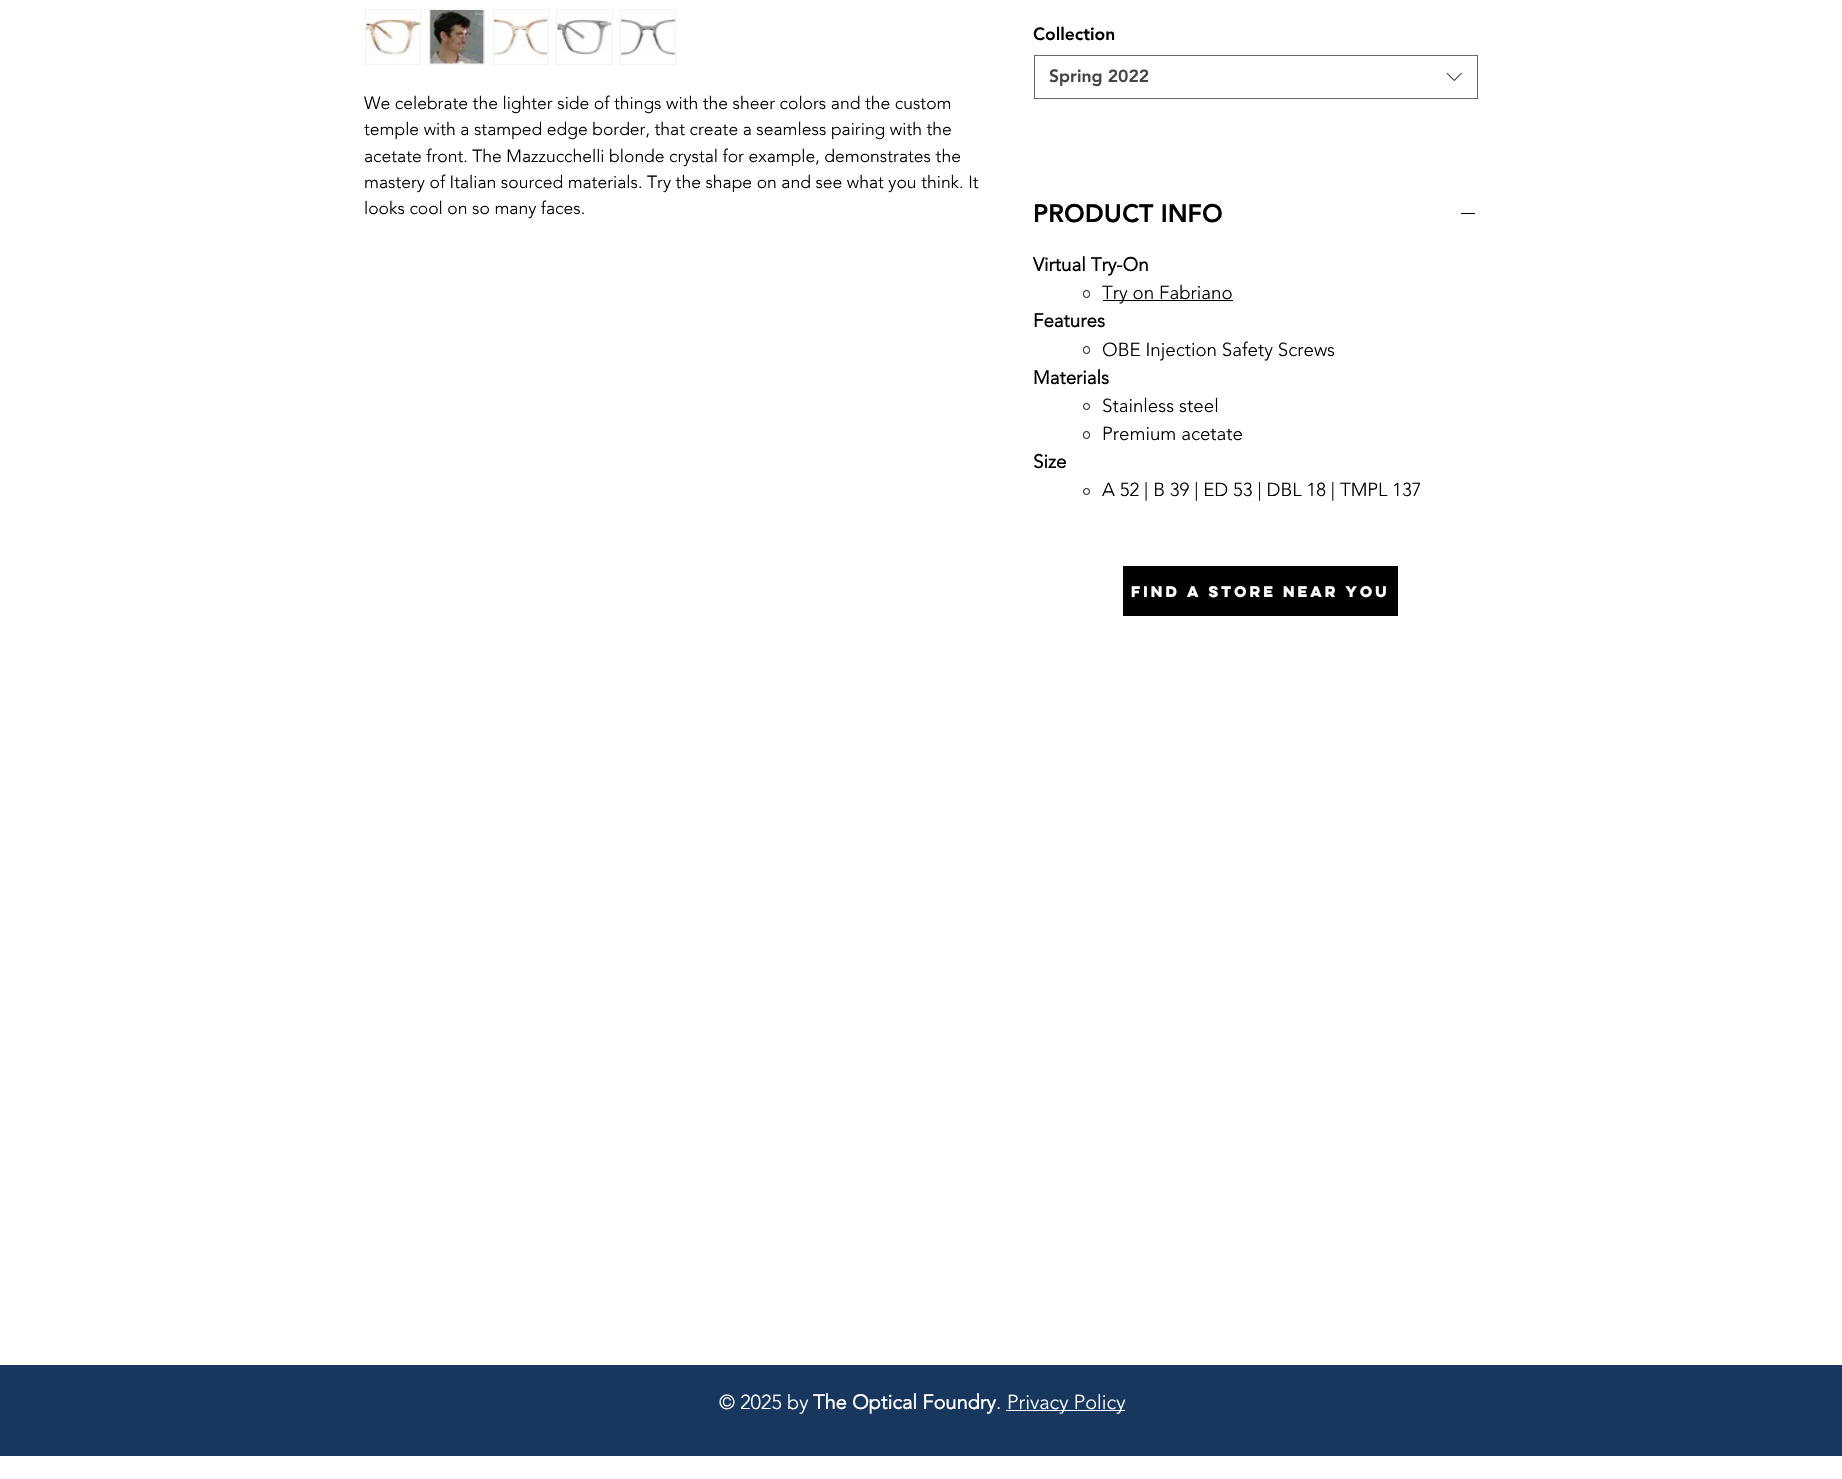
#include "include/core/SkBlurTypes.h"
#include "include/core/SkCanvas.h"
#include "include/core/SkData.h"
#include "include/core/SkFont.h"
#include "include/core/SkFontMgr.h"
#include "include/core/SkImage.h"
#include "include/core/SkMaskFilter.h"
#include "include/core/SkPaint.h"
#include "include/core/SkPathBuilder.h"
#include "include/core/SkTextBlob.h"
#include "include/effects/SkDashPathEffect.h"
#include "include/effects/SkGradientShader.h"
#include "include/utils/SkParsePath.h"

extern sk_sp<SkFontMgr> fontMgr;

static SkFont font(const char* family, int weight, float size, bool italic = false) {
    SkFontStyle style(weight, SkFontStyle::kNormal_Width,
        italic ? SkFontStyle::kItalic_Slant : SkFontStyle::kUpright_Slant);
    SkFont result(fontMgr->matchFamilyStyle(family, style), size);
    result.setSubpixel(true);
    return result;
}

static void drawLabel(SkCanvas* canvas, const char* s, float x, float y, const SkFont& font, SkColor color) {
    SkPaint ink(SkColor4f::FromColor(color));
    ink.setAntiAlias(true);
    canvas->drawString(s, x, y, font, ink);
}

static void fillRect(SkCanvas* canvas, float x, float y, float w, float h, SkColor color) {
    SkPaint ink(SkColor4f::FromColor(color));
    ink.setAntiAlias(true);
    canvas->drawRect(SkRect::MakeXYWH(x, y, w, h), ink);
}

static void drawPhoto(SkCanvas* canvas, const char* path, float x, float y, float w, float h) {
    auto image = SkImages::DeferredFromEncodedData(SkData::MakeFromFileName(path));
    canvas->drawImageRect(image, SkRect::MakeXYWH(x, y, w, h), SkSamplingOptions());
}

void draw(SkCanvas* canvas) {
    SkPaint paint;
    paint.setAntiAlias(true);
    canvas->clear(0xFFFFFFFF);
    paint.setStroke(true);
    paint.setStrokeWidth(1);
    paint.setColor(0xFFF2F2F2);
    canvas->drawRect(SkRect::MakeXYWH(365.5f, 9.5f, 55, 55), paint);
    drawPhoto(canvas, "assets/img1.png", 366, 18, 55, 42);
    canvas->drawRect(SkRect::MakeXYWH(429.5f, 9.5f, 55, 55), paint);
    drawPhoto(canvas, "assets/img2.png", 429, 10, 56, 54);
    canvas->drawRect(SkRect::MakeXYWH(493.5f, 9.5f, 55, 55), paint);
    drawPhoto(canvas, "assets/img3.png", 493, 15, 55, 45);
    canvas->drawRect(SkRect::MakeXYWH(556.5f, 9.5f, 56, 55), paint);
    drawPhoto(canvas, "assets/img4.png", 557, 19, 55, 36);
    canvas->drawRect(SkRect::MakeXYWH(620.5f, 9.5f, 55, 55), paint);
    drawPhoto(canvas, "assets/img5.png", 621, 15, 55, 41);
    SkFont font1 = font("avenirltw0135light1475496", 300, 17.5f);
    drawLabel(canvas, "We celebrate the lighter side of things with the sheer colors and the custom", 364, 109, font1, 0xFF000000);
    drawLabel(canvas, "temple with a stamped edge border, that create a seamless pairing with the", 364, 135, font1, 0xFF000000);
    drawLabel(canvas, "acetate front. The Mazzucchelli blonde crystal for example, demonstrates the", 364, 162, font1, 0xFF000000);
    drawLabel(canvas, "mastery of Italian sourced materials. Try the shape on and see what you think. It", 364, 188, font1, 0xFF000000);
    drawLabel(canvas, "looks cool on so many faces.", 364, 214, font1, 0xFF000000);
    SkFont font2 = font("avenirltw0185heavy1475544", 900, 17.5f);
    drawLabel(canvas, "Collection", 1033, 40, font2, 0xFF000000);
    paint.setColor(0xFF666666);
    canvas->drawRect(SkRect::MakeXYWH(1034.5f, 55.5f, 443, 43), paint);
    drawLabel(canvas, "Spring 2022", 1049, 82, font2, 0xFF444444);
    drawPhoto(canvas, "assets/img6.png", 1446, 72, 16, 10);
    SkFont font3 = font("avenirltw0185heavy1475544", 900, 25);
    drawLabel(canvas, "PRODUCT INFO", 1033, 222, font3, 0xFF000000);
    fillRect(canvas, 1461, 213, 14, 1, 0xFF000000);
    SkFont font4 = font("avenirltw0135light1475496", 700, 18.75f);
    drawLabel(canvas, "Virtual Try-On", 1033, 271, font4, 0xFF000000);
    paint.setColor(0xFF000000);
    canvas->drawRoundRect(SkRect::MakeXYWH(1083.5f, 290.5f, 6, 7), 3, 3, paint);
    fillRect(canvas, 1103, 300, 130, 1, 0xFF000000);
    SkFont font5 = font("avenirltw0135light1475496", 300, 18.75f);
    drawLabel(canvas, "Try on Fabriano", 1102, 299, font5, 0xFF000000);
    drawLabel(canvas, "Features", 1033, 327, font4, 0xFF000000);
    canvas->drawRoundRect(SkRect::MakeXYWH(1083.5f, 346.5f, 6, 7), 3, 3, paint);
    drawLabel(canvas, "OBE Injection Safety Screws", 1102, 356, font5, 0xFF000000);
    drawLabel(canvas, "Materials", 1033, 384, font4, 0xFF000000);
    canvas->drawCircle(1086.5f, 406.5f, 3, paint);
    drawLabel(canvas, "Stainless steel", 1102, 412, font5, 0xFF000000);
    canvas->drawRoundRect(SkRect::MakeXYWH(1083.5f, 431.5f, 6, 7), 3, 3, paint);
    drawLabel(canvas, "Premium acetate", 1102, 440, font5, 0xFF000000);
    drawLabel(canvas, "Size", 1033, 468, font4, 0xFF000000);
    canvas->drawCircle(1086.5f, 491.5f, 3, paint);
    drawLabel(canvas, "A 52 | B 39 | ED 53 | DBL 18 | TMPL 137", 1102, 496, font5, 0xFF000000);
    fillRect(canvas, 1123, 566, 275, 50, 0xFF000000);
    SkFont font6 = font("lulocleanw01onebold", 700, 13.75f);
    drawLabel(canvas, "Find A Store Near You", 1131, 597, font6, 0xFFFFFFFF);
    fillRect(canvas, 0, 1365, 1842, 91, 0xFF18375E);
    SkFont font7 = font("avenirltw0135light1475496", 300, 20);
    drawLabel(canvas, "© 2025 by", 719, 1409, font7, 0xFFFFFFFF);
    SkFont font8 = font("avenirltw0135light1475496", 700, 20);
    drawLabel(canvas, "The Optical Foundry", 813, 1409, font8, 0xFFFFFFFF);
    drawLabel(canvas, ".", 996, 1409, font7, 0xFFFFFFFF);
    fillRect(canvas, 1006, 1410, 119, 1, 0xFFFFFFFF);
    drawLabel(canvas, "Privacy Policy", 1007, 1409, font7, 0xFFFFFFFF);
}
